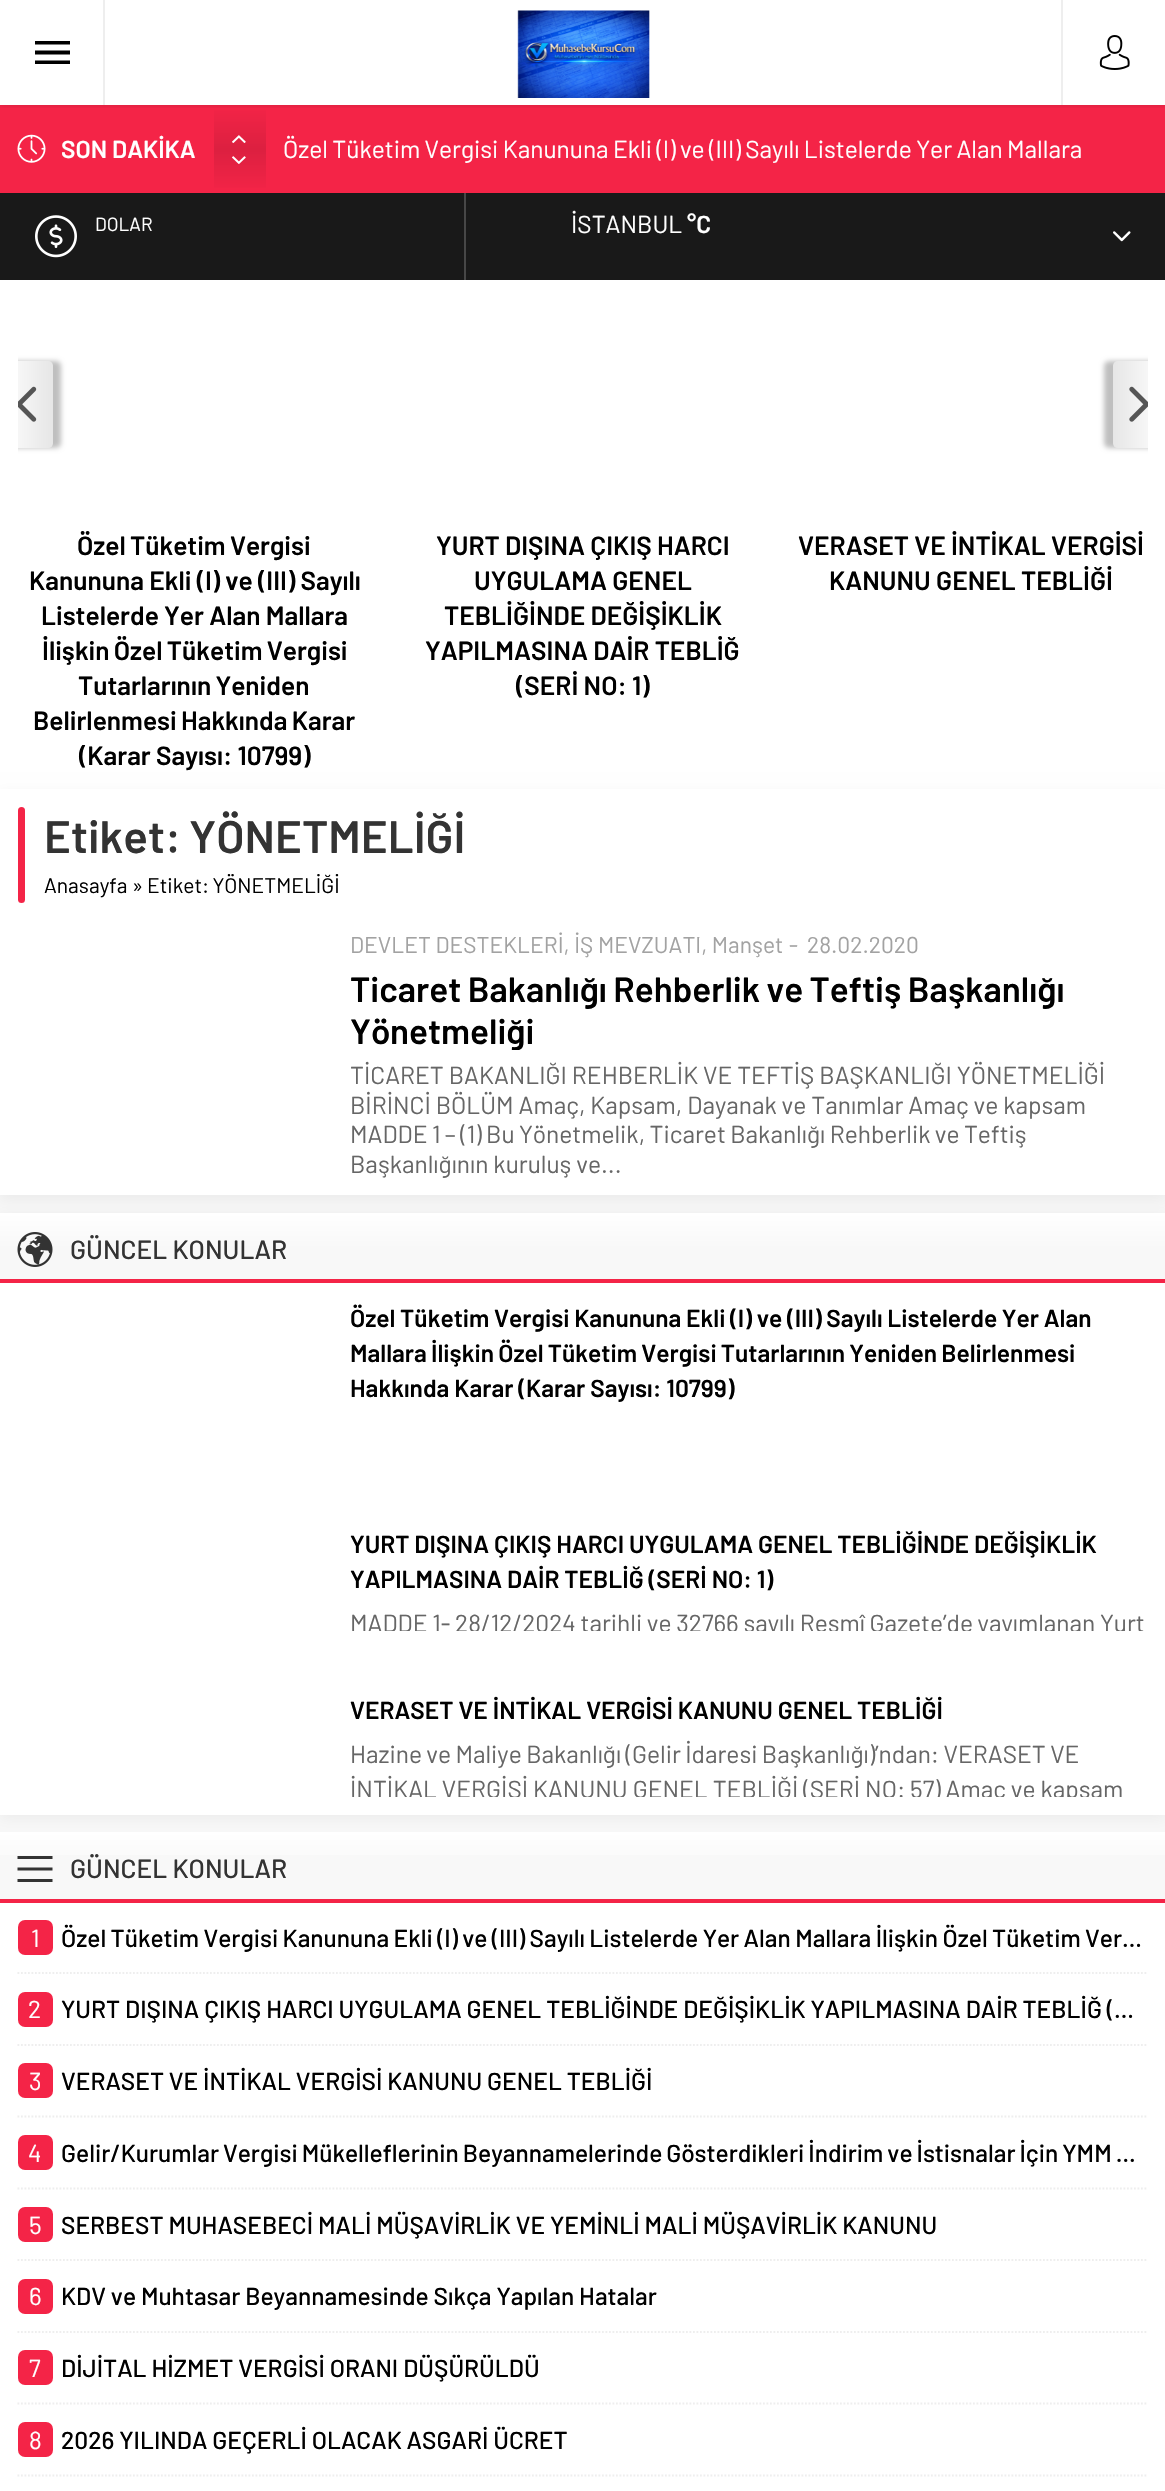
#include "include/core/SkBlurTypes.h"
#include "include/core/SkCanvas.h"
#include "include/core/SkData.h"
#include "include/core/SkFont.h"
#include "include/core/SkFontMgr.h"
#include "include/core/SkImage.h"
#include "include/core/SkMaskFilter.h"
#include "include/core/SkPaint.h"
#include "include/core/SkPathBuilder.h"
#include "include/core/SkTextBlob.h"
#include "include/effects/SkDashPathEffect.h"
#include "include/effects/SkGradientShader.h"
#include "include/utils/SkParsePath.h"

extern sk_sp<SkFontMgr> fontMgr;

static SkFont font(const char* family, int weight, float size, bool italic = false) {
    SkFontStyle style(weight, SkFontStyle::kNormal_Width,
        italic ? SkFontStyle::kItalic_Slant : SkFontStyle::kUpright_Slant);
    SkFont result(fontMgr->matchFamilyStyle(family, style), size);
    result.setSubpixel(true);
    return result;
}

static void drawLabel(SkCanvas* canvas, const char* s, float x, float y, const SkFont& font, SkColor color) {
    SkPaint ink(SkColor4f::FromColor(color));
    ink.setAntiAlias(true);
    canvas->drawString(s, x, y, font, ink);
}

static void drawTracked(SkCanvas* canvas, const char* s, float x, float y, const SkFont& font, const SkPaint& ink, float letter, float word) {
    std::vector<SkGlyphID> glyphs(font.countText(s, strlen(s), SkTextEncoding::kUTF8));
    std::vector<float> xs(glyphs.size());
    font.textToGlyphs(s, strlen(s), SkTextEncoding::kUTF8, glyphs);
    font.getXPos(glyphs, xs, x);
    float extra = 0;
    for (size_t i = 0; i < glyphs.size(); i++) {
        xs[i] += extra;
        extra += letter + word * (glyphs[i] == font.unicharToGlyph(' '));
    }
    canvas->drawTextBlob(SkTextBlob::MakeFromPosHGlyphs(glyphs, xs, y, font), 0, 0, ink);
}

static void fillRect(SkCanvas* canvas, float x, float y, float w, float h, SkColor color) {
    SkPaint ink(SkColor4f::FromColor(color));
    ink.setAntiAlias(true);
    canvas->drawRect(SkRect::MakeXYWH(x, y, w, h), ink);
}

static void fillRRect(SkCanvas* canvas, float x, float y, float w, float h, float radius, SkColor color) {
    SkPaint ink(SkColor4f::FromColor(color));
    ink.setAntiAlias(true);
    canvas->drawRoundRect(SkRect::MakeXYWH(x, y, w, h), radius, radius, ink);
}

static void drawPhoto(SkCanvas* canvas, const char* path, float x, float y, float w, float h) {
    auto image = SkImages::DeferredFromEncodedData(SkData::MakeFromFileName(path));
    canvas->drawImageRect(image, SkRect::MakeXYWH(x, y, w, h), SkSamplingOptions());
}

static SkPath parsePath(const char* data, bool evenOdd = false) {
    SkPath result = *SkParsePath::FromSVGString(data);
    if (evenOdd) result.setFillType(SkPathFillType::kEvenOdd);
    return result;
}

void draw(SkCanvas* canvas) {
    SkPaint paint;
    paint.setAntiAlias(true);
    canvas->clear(0xFFF8F8F8);
    fillRect(canvas, 0, 0, 1165, 105, 0xFFFFFFFF);
    fillRect(canvas, 0, 105, 1165, 88, 0xFFF42447);
    {
        const SkColor colors[] = {0xFFF42447, 0xFFDC2040, 0xFFF42447};
        const float stops[] = {0, 0.5f, 1};
        const SkPoint ends[] = {{240, 105}, {240, 193}};
        paint.setShader(SkGradientShader::MakeLinear(ends, colors, stops, 3, SkTileMode::kClamp));
        paint.setAlpha(255);
    }
    canvas->drawRect(SkRect::MakeXYWH(214, 110, 52, 78), paint);
    canvas->save();
    canvas->clipRect(SkRect::MakeXYWH(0, 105, 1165, 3));
    paint.setShader(nullptr);
    paint.setColor(0x26000000);
    paint.setMaskFilter(SkMaskFilter::MakeBlur(kNormal_SkBlurStyle, 2.5f));
    canvas->drawRect(SkRect::MakeXYWH(0, 0, 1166, 105), paint);
    paint.setMaskFilter(nullptr);
    canvas->restore();
    drawPhoto(canvas, "assets/img1.png", 517, 10, 133, 88);
    fillRect(canvas, 103, 0, 2, 105, 0xFFEEEEEE);
    paint.setColor(0xFF000000);
    canvas->drawPath(parsePath("M35 64V60.5H70V64ZM35 54.5V50.5H70V54.5ZM35 41H70V44.5H35Z"), paint);
    fillRect(canvas, 1061, 0, 2, 105, 0xFFEEEEEE);
    drawPhoto(canvas, "assets/img2.png", 1099, 35, 31, 35);
    drawPhoto(canvas, "assets/img3.png", 17, 134, 29, 29);
    SkFont font1 = font("Barlow", 600, 24.5f);
    drawLabel(canvas, "SON DAKİKA", 61, 158, font1, 0xFFFFFFFF);
    drawPhoto(canvas, "assets/img4.png", 232, 135, 14, 8);
    drawPhoto(canvas, "assets/img5.png", 232, 156, 14, 8);
    SkFont font2 = font("Barlow", 400, 24.5f);
    paint.setColor(0xFFFFFFFF);
    drawTracked(canvas, "Özel Tüketim Vergisi Kanununa Ekli (I) ve (III) Sayılı Listelerde Yer Alan Mallara", 283, 158, font2, paint, 0, -0.5f);
    fillRect(canvas, 0, 193, 464, 87, 0xFF191919);
    fillRect(canvas, 464, 193, 2, 87, 0xFF474747);
    drawPhoto(canvas, "assets/img6.png", 35, 215, 42, 43);
    SkFont font3 = font("Barlow", 400, 19);
    drawLabel(canvas, "DOLAR", 95, 231, font3, 0xFFFFFFFF);
    fillRect(canvas, 466, 193, 699, 87, 0xFF191919);
    drawLabel(canvas, "İSTANBUL", 571, 233, font2, 0xFFFFFFFF);
    drawLabel(canvas, "°C", 687, 233, font1, 0xFFFFFFFF);
    drawPhoto(canvas, "assets/img7.png", 1113, 231, 18, 11);
    fillRect(canvas, 0, 280, 1165, 509, 0xFFFFFFFF);
    canvas->save();
    canvas->clipRect(SkRect::MakeXYWH(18, 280, 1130, 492));
    paint.setColor(0x40000000);
    paint.setMaskFilter(SkMaskFilter::MakeBlur(kNormal_SkBlurStyle, 2.5f));
    canvas->drawRoundRect(SkRect::MakeXYWH(9, 361, 52, 87), 5, 5, paint);
    paint.setMaskFilter(nullptr);
    canvas->restore();
    {
        const SkColor colors[] = {0xFFFFFFFF, 0xFFE6E6E6};
        const float stops[] = {0, 1};
        const SkPoint ends[] = {{0, 404}, {53, 404}};
        paint.setShader(SkGradientShader::MakeLinear(ends, colors, stops, 2, SkTileMode::kClamp));
        paint.setAlpha(255);
    }
    canvas->drawPath(parsePath("M18 361H48C51 361 53 363 53 366V443C53 446 51 448 48 448H18Z"), paint);
    drawPhoto(canvas, "assets/img8.png", 18, 386, 19, 36);
    canvas->save();
    canvas->clipRect(SkRect::MakeXYWH(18, 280, 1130, 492));
    paint.setShader(nullptr);
    paint.setColor(0x40000000);
    paint.setMaskFilter(SkMaskFilter::MakeBlur(kNormal_SkBlurStyle, 2.5f));
    canvas->drawRoundRect(SkRect::MakeXYWH(1104, 361, 53, 87), 5, 5, paint);
    paint.setMaskFilter(nullptr);
    canvas->restore();
    {
        const SkColor colors[] = {0xFFE6E6E6, 0xFFFFFFFF};
        const float stops[] = {0, 1};
        const SkPoint ends[] = {{1113, 404}, {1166, 404}};
        paint.setShader(SkGradientShader::MakeLinear(ends, colors, stops, 2, SkTileMode::kClamp));
        paint.setAlpha(255);
    }
    canvas->drawPath(parsePath("M1118 361H1148V448H1118C1115 448 1113 446 1113 443V366C1113 363 1115 361 1118 361Z"), paint);
    drawPhoto(canvas, "assets/img9.png", 1129, 386, 19, 36);
    SkFont font4 = font("Barlow", 600, 26.25f);
    paint.setShader(nullptr);
    paint.setColor(0xFF000000);
    drawTracked(canvas, "Özel Tüketim Vergisi", 77, 555, font4, paint, 0, -1);
    drawLabel(canvas, "Kanununa Ekli (I) ve (III) Sayılı", 29, 590, font4, 0xFF000000);
    drawLabel(canvas, "Listelerde Yer Alan Mallara", 41, 625, font4, 0xFF000000);
    drawTracked(canvas, "İlişkin Özel Tüketim Vergisi", 42, 660, font4, paint, 0, -1);
    drawTracked(canvas, "Tutarlarının Yeniden", 78, 695, font4, paint, 0, -1);
    drawTracked(canvas, "Belirlenmesi Hakkında Karar", 33, 730, font4, paint, 0, -1);
    drawLabel(canvas, "(Karar Sayısı: 10799)", 79, 765, font4, 0xFF000000);
    drawLabel(canvas, "YURT DIŞINA ÇIKIŞ HARCI", 436, 555, font4, 0xFF000000);
    drawLabel(canvas, "UYGULAMA GENEL", 474, 590, font4, 0xFF000000);
    drawLabel(canvas, "TEBLİĞİNDE DEĞİŞİKLİK", 444, 625, font4, 0xFF000000);
    drawLabel(canvas, "YAPILMASINA DAİR TEBLİĞ", 425, 660, font4, 0xFF000000);
    drawLabel(canvas, "(SERİ NO: 1)", 516, 695, font4, 0xFF000000);
    drawLabel(canvas, "VERASET VE İNTİKAL VERGİSİ", 798, 555, font4, 0xFF000000);
    drawLabel(canvas, "KANUNU GENEL TEBLİĞİ", 829, 590, font4, 0xFF000000);
    paint.setColor(0x0D000000);
    paint.setMaskFilter(SkMaskFilter::MakeBlur(kNormal_SkBlurStyle, 7));
    canvas->drawRect(SkRect::MakeXYWH(0, 793, 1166, 406), paint);
    paint.setMaskFilter(nullptr);
    fillRect(canvas, 0, 789, 1165, 406, 0xFFFFFFFF);
    fillRRect(canvas, 18, 807, 7, 96, 3.5f, 0xFFF42447);
    SkFont font5 = font("Barlow", 600, 45.5f);
    drawLabel(canvas, "Etiket:", 44, 853, font5, 0xFF333333);
    drawLabel(canvas, "YÖNETMELİĞİ", 189, 853, font5, 0xFF333333);
    SkFont font6 = font("Barlow", 400, 21);
    drawLabel(canvas, "Anasayfa »", 44, 893, font6, 0xFF000000);
    paint.setColor(0xFF000000);
    drawTracked(canvas, "Etiket: YÖNETMELİĞİ", 147, 893, font6, paint, 0, -1);
    SkFont font7 = font("Barlow", 400, 22.75f);
    drawLabel(canvas, "DEVLET DESTEKLERİ, İŞ MEVZUATI, Manşet", 350, 953, font7, 0xFFA2A2A2);
    drawLabel(canvas, "-", 789, 953, font7, 0xFFA2A2A2);
    drawLabel(canvas, "28.02.2020", 807, 953, font7, 0xFFA2A2A2);
    SkFont font8 = font("Barlow", 600, 35);
    drawTracked(canvas, "Ticaret Bakanlığı Rehberlik ve Teftiş Başkanlığı", 350, 1002, font8, paint, 0, -0.5f);
    canvas->save();
    canvas->clipRect(SkRect::MakeXYWH(350, 966, 798, 84));
    drawLabel(canvas, "Yönetmeliği", 350, 1044, font8, 0xFF000000);
    canvas->restore();
    drawLabel(canvas, "TİCARET BAKANLIĞI REHBERLİK VE TEFTİŞ BAŞKANLIĞI YÖNETMELİĞİ", 350, 1084, font2, 0xFF666666);
    drawLabel(canvas, "BİRİNCİ BÖLÜM Amaç, Kapsam, Dayanak ve Tanımlar Amaç ve kapsam", 350, 1114, font2, 0xFF666666);
    paint.setColor(0xFF666666);
    drawTracked(canvas, "MADDE 1 – (1) Bu Yönetmelik, Ticaret Bakanlığı Rehberlik ve Teftiş", 350, 1143, font2, paint, 0, -0.5f);
    drawLabel(canvas, "Başkanlığının kuruluş ve...", 350, 1173, font2, 0xFF666666);
    paint.setColor(0x0D000000);
    paint.setMaskFilter(SkMaskFilter::MakeBlur(kNormal_SkBlurStyle, 7));
    canvas->drawRect(SkRect::MakeXYWH(0, 1216, 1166, 602), paint);
    paint.setMaskFilter(nullptr);
    fillRect(canvas, 0, 1283, 1165, 532, 0xFFFFFFFF);
    {
        const SkColor colors[] = {0xFFFFFFFF, 0xFFF8F8F8};
        const float stops[] = {0, 0.5f};
        const SkPoint ends[] = {{583, 1213}, {583, 1283}};
        paint.setShader(SkGradientShader::MakeLinear(ends, colors, stops, 2, SkTileMode::kClamp));
        paint.setAlpha(255);
    }
    canvas->drawRect(SkRect::MakeXYWH(0, 1213, 1165, 66), paint);
    drawPhoto(canvas, "assets/img10.png", 17, 1232, 36, 35);
    SkFont font9 = font("Barlow", 500, 26.25f);
    drawLabel(canvas, "GÜNCEL KONULAR", 70, 1259, font9, 0xFF333333);
    fillRect(canvas, 0, 1279, 1165, 4, 0xFFF42447);
    paint.setShader(nullptr);
    paint.setColor(0xFF000000);
    drawTracked(canvas, "Özel Tüketim Vergisi Kanununa Ekli (I) ve (III) Sayılı Listelerde Yer Alan", 350, 1327, font1, paint, 0, -0.25f);
    drawTracked(canvas, "Mallara İlişkin Özel Tüketim Vergisi Tutarlarının Yeniden Belirlenmesi", 350, 1362, font1, paint, 0, -0.75f);
    drawLabel(canvas, "Hakkında Karar (Karar Sayısı: 10799)", 350, 1397, font1, 0xFF000000);
    drawLabel(canvas, "YURT DIŞINA ÇIKIŞ HARCI UYGULAMA GENEL TEBLİĞİNDE DEĞİŞİKLİK", 350, 1553, font1, 0xFF000000);
    drawLabel(canvas, "YAPILMASINA DAİR TEBLİĞ (SERİ NO: 1)", 350, 1588, font1, 0xFF000000);
    canvas->save();
    canvas->clipRect(SkRect::MakeXYWH(350, 1526, 798, 105));
    paint.setColor(0xFF666666);
    drawTracked(canvas, "MADDE 1- 28/12/2024 tarihli ve 32766 sayılı Resmî Gazete’de yayımlanan Yurt", 350, 1632, font2, paint, 0, -0.25f);
    canvas->restore();
    drawLabel(canvas, "VERASET VE İNTİKAL VERGİSİ KANUNU GENEL TEBLİĞİ", 350, 1719, font1, 0xFF000000);
    drawTracked(canvas, "Hazine ve Maliye Bakanlığı (Gelir İdaresi Başkanlığı)’ndan: VERASET VE", 350, 1763, font2, paint, 0, -0.5f);
    canvas->save();
    canvas->clipRect(SkRect::MakeXYWH(350, 1692, 798, 105));
    drawLabel(canvas, "İNTİKAL VERGİSİ KANUNU GENEL TEBLİĞİ (SERİ NO: 57) Amaç ve kapsam", 350, 1798, font2, 0xFF666666);
    canvas->restore();
    fillRect(canvas, 0, 1903, 1165, 588, 0xFFFFFFFF);
    {
        const SkColor colors[] = {0xFFFFFFFF, 0xFFF8F8F8};
        const float stops[] = {0, 0.5f};
        const SkPoint ends[] = {{583, 1832}, {583, 1902}};
        paint.setShader(SkGradientShader::MakeLinear(ends, colors, stops, 2, SkTileMode::kClamp));
        paint.setAlpha(255);
    }
    canvas->drawRect(SkRect::MakeXYWH(0, 1832, 1165, 23), paint);
    paint.setShader(nullptr);
    paint.setColor(0xFF333333);
    canvas->drawPath(parsePath("M17.5 1856V1859H52.5V1856ZM17.5 1867.5V1870.5H52.5V1867.5ZM17.5 1879V1882H52.5V1879Z"), paint);
    drawLabel(canvas, "GÜNCEL KONULAR", 70, 1878, font9, 0xFF333333);
    fillRect(canvas, 0, 1899, 1165, 4, 0xFFF42447);
    fillRRect(canvas, 18, 1920, 35, 35, 7, 0xFFF42447);
    drawLabel(canvas, "1", 31, 1947, font2, 0xFFFFFFFF);
    SkFont font10 = font("Barlow", 500, 24.5f);
    paint.setColor(0xFF000000);
    drawTracked(canvas, "Özel Tüketim Vergisi Kanununa Ekli (I) ve (III) Sayılı Listelerde Yer Alan Mallara İlişkin Özel Tüketim Ver…", 61, 1947, font10, paint, 0, -0.5f);
    paint.setStroke(true);
    paint.setStrokeWidth(1.8f);
    paint.setColor(0xFFEEEEEE);
    paint.setPathEffect(SkDashPathEffect::Make({{1.75f, 1.75f}}, 0));
    canvas->drawPath(parsePath("M17.5 1973H1148"), paint);
    paint.setPathEffect(nullptr);
    fillRRect(canvas, 18, 1992, 35, 35, 7, 0xFFF42447);
    drawLabel(canvas, "2", 28, 2018, font2, 0xFFFFFFFF);
    drawLabel(canvas, "YURT DIŞINA ÇIKIŞ HARCI UYGULAMA GENEL TEBLİĞİNDE DEĞİŞİKLİK YAPILMASINA DAİR TEBLİĞ (…", 61, 2018, font10, 0xFF000000);
    paint.setPathEffect(SkDashPathEffect::Make({{1.75f, 1.75f}}, 0));
    canvas->drawPath(parsePath("M17.5 2045H1148"), paint);
    paint.setPathEffect(nullptr);
    fillRRect(canvas, 18, 2063, 35, 35, 7, 0xFFF42447);
    drawLabel(canvas, "3", 29, 2090, font2, 0xFFFFFFFF);
    drawLabel(canvas, "VERASET VE İNTİKAL VERGİSİ KANUNU GENEL TEBLİĞİ", 61, 2090, font10, 0xFF000000);
    paint.setPathEffect(SkDashPathEffect::Make({{1.75f, 1.75f}}, 0));
    canvas->drawPath(parsePath("M17.5 2116.5H1148"), paint);
    paint.setPathEffect(nullptr);
    fillRRect(canvas, 18, 2135, 35, 35, 7, 0xFFF42447);
    drawLabel(canvas, "4", 28, 2162, font2, 0xFFFFFFFF);
    paint.setStroke(false);
    paint.setColor(0xFF000000);
    drawTracked(canvas, "Gelir/Kurumlar Vergisi Mükelleflerinin Beyannamelerinde Gösterdikleri İndirim ve İstisnalar İçin YMM …", 61, 2162, font10, paint, 0, -0.9f);
    paint.setStroke(true);
    paint.setColor(0xFFEEEEEE);
    paint.setPathEffect(SkDashPathEffect::Make({{1.75f, 1.75f}}, 0));
    canvas->drawPath(parsePath("M17.5 2188.5H1148"), paint);
    paint.setPathEffect(nullptr);
    fillRRect(canvas, 18, 2207, 35, 35, 7, 0xFFF42447);
    drawLabel(canvas, "5", 29, 2234, font2, 0xFFFFFFFF);
    drawLabel(canvas, "SERBEST MUHASEBECİ MALİ MÜŞAVİRLİK VE YEMİNLİ MALİ MÜŞAVİRLİK KANUNU", 61, 2234, font10, 0xFF000000);
    paint.setPathEffect(SkDashPathEffect::Make({{1.75f, 1.75f}}, 0));
    canvas->drawPath(parsePath("M17.5 2260H1148"), paint);
    paint.setPathEffect(nullptr);
    fillRRect(canvas, 18, 2279, 35, 35, 7, 0xFFF42447);
    drawLabel(canvas, "6", 29, 2305, font2, 0xFFFFFFFF);
    drawLabel(canvas, "KDV ve Muhtasar Beyannamesinde Sıkça Yapılan Hatalar", 61, 2305, font10, 0xFF000000);
    paint.setPathEffect(SkDashPathEffect::Make({{1.75f, 1.75f}}, 0));
    canvas->drawPath(parsePath("M17.5 2332H1148"), paint);
    paint.setPathEffect(nullptr);
    fillRRect(canvas, 18, 2350, 35, 35, 7, 0xFFF42447);
    drawLabel(canvas, "7", 29, 2377, font2, 0xFFFFFFFF);
    drawLabel(canvas, "DİJİTAL HİZMET VERGİSİ ORANI DÜŞÜRÜLDÜ", 61, 2377, font10, 0xFF000000);
    paint.setPathEffect(SkDashPathEffect::Make({{1.75f, 1.75f}}, 0));
    canvas->drawPath(parsePath("M17.5 2403.5H1148"), paint);
    paint.setPathEffect(nullptr);
    fillRRect(canvas, 18, 2422, 35, 35, 7, 0xFFF42447);
    drawLabel(canvas, "8", 29, 2449, font2, 0xFFFFFFFF);
    drawLabel(canvas, "2026 YILINDA GEÇERLİ OLACAK ASGARİ ÜCRET", 61, 2449, font10, 0xFF000000);
    paint.setPathEffect(SkDashPathEffect::Make({{1.75f, 1.75f}}, 0));
    canvas->drawPath(parsePath("M17.5 2475.5H1148"), paint);
    paint.setPathEffect(nullptr);
}
